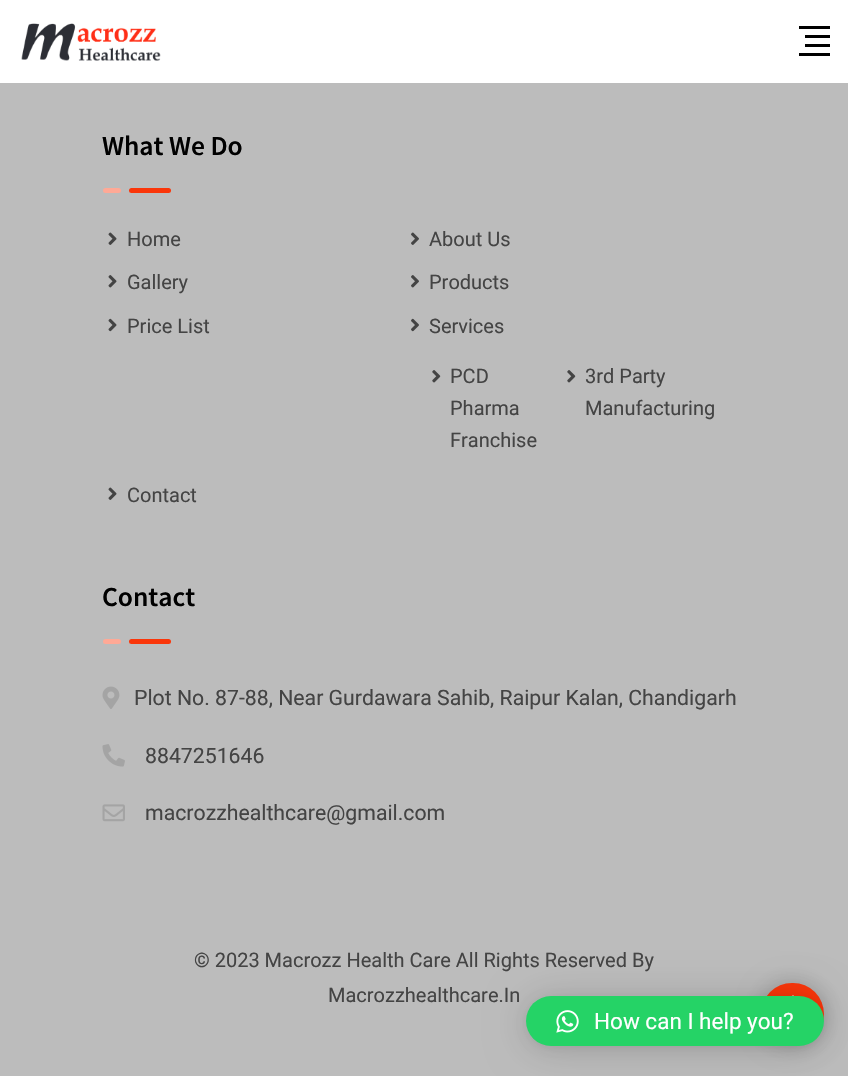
#include "include/core/SkBlurTypes.h"
#include "include/core/SkCanvas.h"
#include "include/core/SkData.h"
#include "include/core/SkFont.h"
#include "include/core/SkFontMgr.h"
#include "include/core/SkImage.h"
#include "include/core/SkMaskFilter.h"
#include "include/core/SkPaint.h"
#include "include/core/SkPathBuilder.h"
#include "include/core/SkTextBlob.h"
#include "include/effects/SkDashPathEffect.h"
#include "include/effects/SkGradientShader.h"
#include "include/utils/SkParsePath.h"

extern sk_sp<SkFontMgr> fontMgr;

static SkFont font(const char* family, int weight, float size, bool italic = false) {
    SkFontStyle style(weight, SkFontStyle::kNormal_Width,
        italic ? SkFontStyle::kItalic_Slant : SkFontStyle::kUpright_Slant);
    SkFont result(fontMgr->matchFamilyStyle(family, style), size);
    result.setSubpixel(true);
    return result;
}

static void drawLabel(SkCanvas* canvas, const char* s, float x, float y, const SkFont& font, SkColor color) {
    SkPaint ink(SkColor4f::FromColor(color));
    ink.setAntiAlias(true);
    canvas->drawString(s, x, y, font, ink);
}

static void fillRect(SkCanvas* canvas, float x, float y, float w, float h, SkColor color) {
    SkPaint ink(SkColor4f::FromColor(color));
    ink.setAntiAlias(true);
    canvas->drawRect(SkRect::MakeXYWH(x, y, w, h), ink);
}

static void fillRRect(SkCanvas* canvas, float x, float y, float w, float h, float radius, SkColor color) {
    SkPaint ink(SkColor4f::FromColor(color));
    ink.setAntiAlias(true);
    canvas->drawRoundRect(SkRect::MakeXYWH(x, y, w, h), radius, radius, ink);
}

static void drawPhoto(SkCanvas* canvas, const char* path, float x, float y, float w, float h) {
    auto image = SkImages::DeferredFromEncodedData(SkData::MakeFromFileName(path));
    canvas->drawImageRect(image, SkRect::MakeXYWH(x, y, w, h), SkSamplingOptions());
}

void draw(SkCanvas* canvas) {
    SkPaint paint;
    paint.setAntiAlias(true);
    canvas->clear(0xFFBCBCBC);
    fillRect(canvas, 0, 0, 848, 83, 0xFFFFFFFF);
    drawPhoto(canvas, "assets/img1.png", 21, 23, 140, 38);
    fillRect(canvas, 799, 26, 31, 3, 0xFF000000);
    fillRect(canvas, 805, 35, 25, 3, 0xFF000000);
    fillRect(canvas, 805, 44, 25, 3, 0xFF000000);
    fillRect(canvas, 799, 53, 31, 3, 0xFF000000);
    SkFont font1 = font("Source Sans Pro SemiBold", 600, 27.5f);
    drawLabel(canvas, "What We Do", 102, 155, font1, 0xFF000000);
    fillRRect(canvas, 103, 188, 18, 5, 2.5f, 0xFFFFA996);
    fillRRect(canvas, 129, 188, 42, 5, 2.5f, 0xFFFA360A);
    drawPhoto(canvas, "assets/img2.png", 108, 232, 9, 13);
    SkFont font2 = font("Roboto", 400, 20);
    drawLabel(canvas, "Home", 127, 246, font2, 0xFF444444);
    drawPhoto(canvas, "assets/img3.png", 411, 232, 8, 13);
    drawLabel(canvas, "About Us", 429, 246, font2, 0xFF444444);
    drawPhoto(canvas, "assets/img4.png", 108, 275, 9, 13);
    drawLabel(canvas, "Gallery", 127, 289, font2, 0xFF444444);
    drawPhoto(canvas, "assets/img5.png", 411, 275, 8, 13);
    drawLabel(canvas, "Products", 429, 289, font2, 0xFF444444);
    drawPhoto(canvas, "assets/img6.png", 108, 318, 9, 14);
    drawLabel(canvas, "Price List", 127, 333, font2, 0xFF444444);
    drawPhoto(canvas, "assets/img7.png", 411, 318, 8, 14);
    drawLabel(canvas, "Services", 429, 333, font2, 0xFF444444);
    drawPhoto(canvas, "assets/img8.png", 432, 370, 9, 13);
    drawLabel(canvas, "PCD", 450, 383, font2, 0xFF444444);
    drawLabel(canvas, "Pharma", 450, 415, font2, 0xFF444444);
    drawLabel(canvas, "Franchise", 450, 447, font2, 0xFF444444);
    drawPhoto(canvas, "assets/img8.png", 567, 370, 9, 13);
    drawLabel(canvas, "3rd Party", 585, 383, font2, 0xFF444444);
    drawLabel(canvas, "Manufacturing", 585, 415, font2, 0xFF444444);
    drawPhoto(canvas, "assets/img2.png", 108, 487, 9, 13);
    drawLabel(canvas, "Contact", 127, 502, font2, 0xFF444444);
    drawLabel(canvas, "Contact", 102, 606, font1, 0xFF000000);
    fillRRect(canvas, 103, 639, 18, 5, 2.5f, 0xFFFFA996);
    fillRRect(canvas, 129, 639, 42, 5, 2.5f, 0xFFFA360A);
    drawPhoto(canvas, "assets/img9.png", 102, 686, 18, 23);
    SkFont font3 = font("Roboto", 400, 21.25f);
    drawLabel(canvas, "Plot No. 87-88, Near Gurdawara Sahib, Raipur Kalan, Chandigarh", 134, 705, font3, 0xFF444444);
    drawPhoto(canvas, "assets/img10.png", 102, 744, 23, 23);
    drawLabel(canvas, "8847251646", 145, 763, font3, 0xFF444444);
    drawPhoto(canvas, "assets/img11.png", 102, 804, 23, 18);
    drawLabel(canvas, "macrozzhealthcare@gmail.com", 145, 820, font3, 0xFF444444);
    drawLabel(canvas, "© 2023 Macrozz Health Care All Rights Reserved By", 194, 967, font2, 0xFF444444);
    drawLabel(canvas, "Macrozzhealthcare.In", 328, 1002, font2, 0xFF444444);
    paint.setColor(0x33000000);
    paint.setMaskFilter(SkMaskFilter::MakeBlur(kNormal_SkBlurStyle, 12.5f));
    canvas->drawRoundRect(SkRect::MakeXYWH(761, 983, 63, 62), 31, 31, paint);
    paint.setMaskFilter(nullptr);
    fillRRect(canvas, 761, 983, 63, 62, 31, 0xFFFA360A);
    drawPhoto(canvas, "assets/img12.png", 792, 995, 2, 1);
    paint.setColor(0x29000000);
    paint.setMaskFilter(SkMaskFilter::MakeBlur(kNormal_SkBlurStyle, 20));
    canvas->drawRoundRect(SkRect::MakeXYWH(526, 999, 298, 50), 25, 25, paint);
    paint.setMaskFilter(nullptr);
    paint.setColor(0x0F000000);
    paint.setMaskFilter(SkMaskFilter::MakeBlur(kNormal_SkBlurStyle, 4));
    canvas->drawRoundRect(SkRect::MakeXYWH(526, 998, 298, 50), 25, 25, paint);
    paint.setMaskFilter(nullptr);
    fillRRect(canvas, 526, 996, 298, 50, 25, 0xFF25D366);
    drawPhoto(canvas, "assets/img13.png", 556, 1010, 23, 23);
    SkFont font4 = font("Roboto", 400, 22.5f);
    drawLabel(canvas, "How can I help you?", 594, 1029, font4, 0xFFFFFFFF);
}
